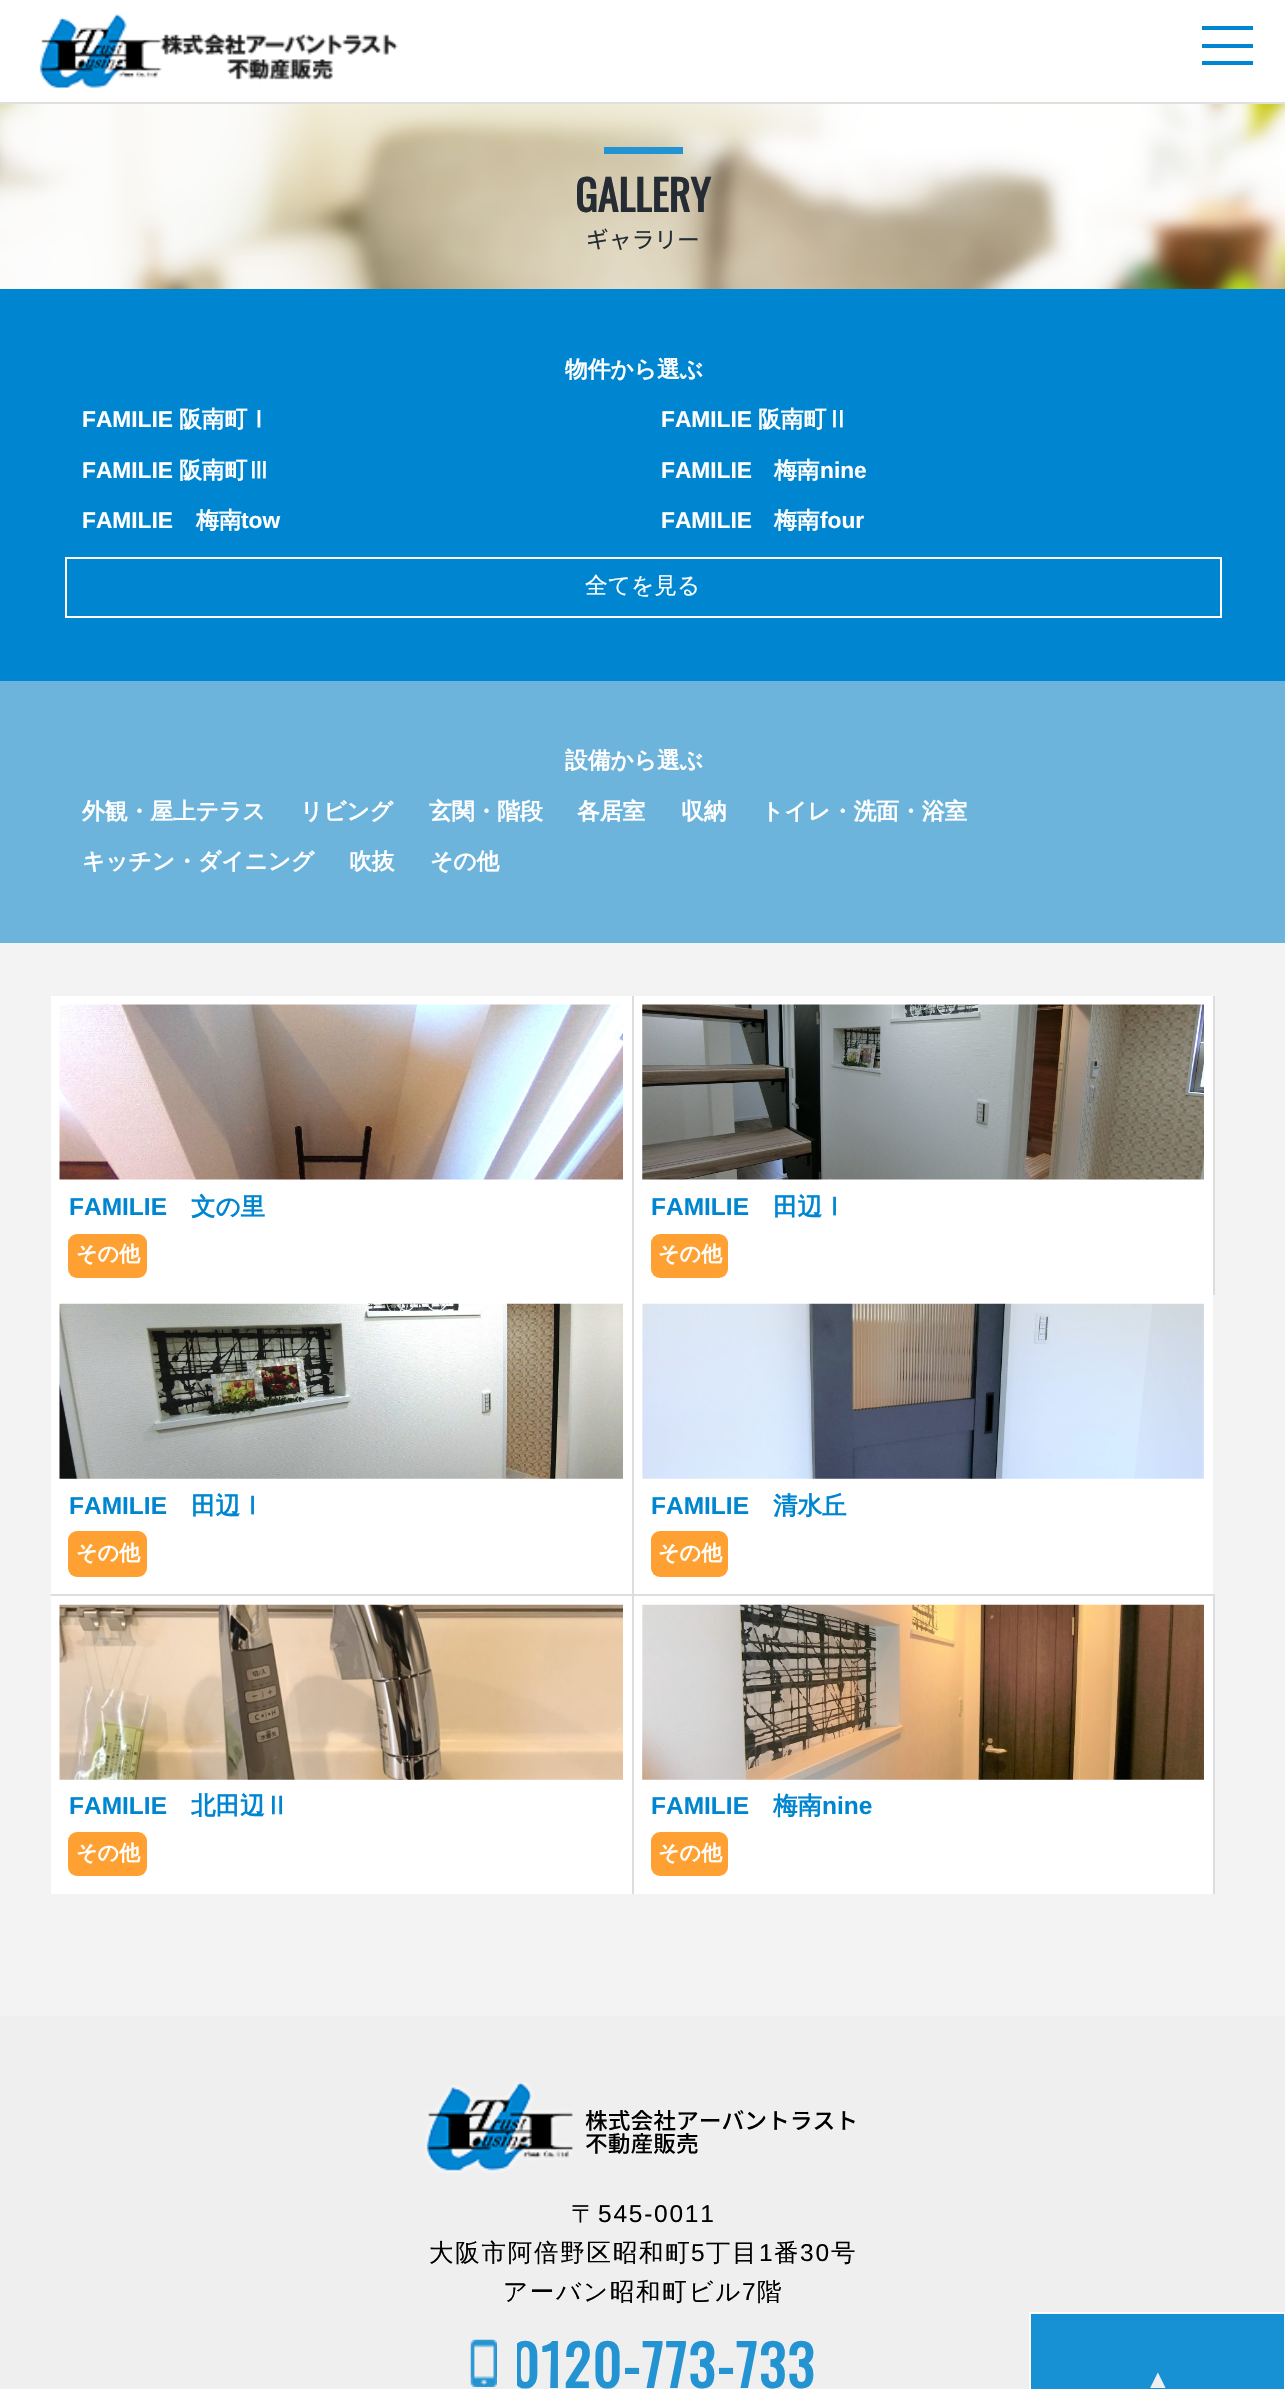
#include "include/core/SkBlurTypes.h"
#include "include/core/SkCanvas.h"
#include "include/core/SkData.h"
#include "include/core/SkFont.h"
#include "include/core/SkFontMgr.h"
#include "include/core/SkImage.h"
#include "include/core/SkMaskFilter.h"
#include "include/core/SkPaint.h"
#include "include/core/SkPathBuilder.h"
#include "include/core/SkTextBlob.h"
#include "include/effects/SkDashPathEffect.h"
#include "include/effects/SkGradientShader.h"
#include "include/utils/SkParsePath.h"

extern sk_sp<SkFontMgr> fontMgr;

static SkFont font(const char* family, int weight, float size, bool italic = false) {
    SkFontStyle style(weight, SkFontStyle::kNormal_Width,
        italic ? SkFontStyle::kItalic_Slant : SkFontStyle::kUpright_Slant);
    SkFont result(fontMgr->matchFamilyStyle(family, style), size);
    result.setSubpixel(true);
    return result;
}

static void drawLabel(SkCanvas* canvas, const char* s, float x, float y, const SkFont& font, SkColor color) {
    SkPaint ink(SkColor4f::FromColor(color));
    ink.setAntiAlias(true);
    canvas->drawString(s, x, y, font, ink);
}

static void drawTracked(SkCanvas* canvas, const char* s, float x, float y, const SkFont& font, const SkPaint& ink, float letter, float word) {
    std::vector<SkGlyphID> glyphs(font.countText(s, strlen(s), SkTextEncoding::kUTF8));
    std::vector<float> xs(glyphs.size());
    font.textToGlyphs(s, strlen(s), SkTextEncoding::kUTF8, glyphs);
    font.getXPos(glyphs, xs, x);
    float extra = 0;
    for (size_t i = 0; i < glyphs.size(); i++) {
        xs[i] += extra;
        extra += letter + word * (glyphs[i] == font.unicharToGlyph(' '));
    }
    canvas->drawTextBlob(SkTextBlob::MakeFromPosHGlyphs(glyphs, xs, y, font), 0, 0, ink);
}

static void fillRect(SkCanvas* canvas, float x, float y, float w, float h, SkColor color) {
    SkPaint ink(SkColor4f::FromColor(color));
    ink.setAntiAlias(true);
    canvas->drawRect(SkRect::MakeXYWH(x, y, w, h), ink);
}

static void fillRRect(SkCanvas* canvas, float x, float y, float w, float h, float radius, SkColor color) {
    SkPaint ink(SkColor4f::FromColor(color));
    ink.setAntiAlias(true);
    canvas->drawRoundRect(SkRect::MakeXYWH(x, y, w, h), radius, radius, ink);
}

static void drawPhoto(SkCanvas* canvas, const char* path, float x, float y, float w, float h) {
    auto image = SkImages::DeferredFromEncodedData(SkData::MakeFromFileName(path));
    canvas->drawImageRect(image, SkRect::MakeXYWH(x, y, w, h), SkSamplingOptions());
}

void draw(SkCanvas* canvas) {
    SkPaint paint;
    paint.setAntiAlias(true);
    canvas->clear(0xFFFFFFFF);
    fillRect(canvas, 0, 102, 1285, 2, 0xFFDFDFDF);
    drawPhoto(canvas, "assets/img1.png", 39, 14, 359, 74);
    fillRect(canvas, 1202, 44, 51, 4, 0xFF0086D1);
    fillRect(canvas, 1202, 26, 51, 4, 0xFF0086D1);
    fillRect(canvas, 1202, 61, 51, 4, 0xFF0086D1);
    drawPhoto(canvas, "assets/img2.png", 0, 104, 1285, 185);
    fillRect(canvas, 0, 289, 1285, 392, 0xFF0086D1);
    fillRect(canvas, 604, 147, 79, 7, 0xFF2493D1);
    SkFont font1 = font("Oswald", 700, 42);
    drawLabel(canvas, "GALLERY", 575, 212, font1, 0xFF262C33);
    SkFont font2 = font("Noto Sans JP", 400, 22.75f);
    drawLabel(canvas, "ギャラリー", 586, 248, font2, 0xFF262C33);
    SkFont font3 = font("WenQuanYi Zen Hei", 700, 22.75f);
    drawLabel(canvas, "物件から選ぶ", 565, 377, font3, 0xFFFFFFFF);
    SkFont font4 = font("Liberation Sans", 700, 22.75f);
    drawLabel(canvas, "FAMILIE", 82, 427, font4, 0xFFFFFFFF);
    drawLabel(canvas, "阪南町Ⅰ", 179, 427, font3, 0xFFFFFFFF);
    drawLabel(canvas, "FAMILIE", 661, 427, font4, 0xFFFFFFFF);
    drawLabel(canvas, "阪南町Ⅱ", 758, 427, font3, 0xFFFFFFFF);
    drawLabel(canvas, "FAMILIE", 82, 478, font4, 0xFFFFFFFF);
    drawLabel(canvas, "阪南町Ⅲ", 179, 478, font3, 0xFFFFFFFF);
    drawLabel(canvas, "FAMILIE", 661, 478, font4, 0xFFFFFFFF);
    drawLabel(canvas, "梅南", 774, 478, font3, 0xFFFFFFFF);
    drawLabel(canvas, "nine", 820, 478, font4, 0xFFFFFFFF);
    drawLabel(canvas, "FAMILIE", 82, 528, font4, 0xFFFFFFFF);
    drawLabel(canvas, "梅南", 196, 528, font3, 0xFFFFFFFF);
    drawLabel(canvas, "tow", 241, 528, font4, 0xFFFFFFFF);
    drawLabel(canvas, "FAMILIE", 661, 528, font4, 0xFFFFFFFF);
    drawLabel(canvas, "梅南", 774, 528, font3, 0xFFFFFFFF);
    drawLabel(canvas, "four", 820, 528, font4, 0xFFFFFFFF);
    paint.setStroke(true);
    paint.setStrokeWidth(2);
    paint.setColor(0xFFFFFFFF);
    canvas->drawRect(SkRect::MakeXYWH(66, 558, 1155, 59), paint);
    SkFont font5 = font("WenQuanYi Zen Hei", 500, 22.75f);
    drawLabel(canvas, "全てを見る", 585, 593, font5, 0xFFFFFFFF);
    fillRect(canvas, 0, 681, 1285, 262, 0xFF6DB4DC);
    drawLabel(canvas, "設備から選ぶ", 565, 768, font3, 0xFFFFFFFF);
    drawLabel(canvas, "外観・屋上テラス", 82, 819, font3, 0xFFFFFFFF);
    drawLabel(canvas, "リビング", 300, 819, font3, 0xFFFFFFFF);
    drawLabel(canvas, "玄関・階段", 429, 819, font3, 0xFFFFFFFF);
    drawLabel(canvas, "各居室", 577, 819, font3, 0xFFFFFFFF);
    drawLabel(canvas, "収納", 681, 819, font3, 0xFFFFFFFF);
    drawLabel(canvas, "トイレ・洗面・浴室", 761, 819, font3, 0xFFFFFFFF);
    drawLabel(canvas, "キッチン・ダイニング", 82, 869, font3, 0xFFFFFFFF);
    drawLabel(canvas, "吹抜", 349, 869, font3, 0xFFFFFFFF);
    drawLabel(canvas, "その他", 430, 869, font3, 0xFFFFFFFF);
    fillRect(canvas, 0, 943, 1285, 1073, 0xFFF3F3F3);
    fillRect(canvas, 51, 996, 581, 598, 0xFFFFFFFF);
    fillRect(canvas, 632, 996, 2, 598, 0xFFDDDDDD);
    drawPhoto(canvas, "assets/img3.png", 59, 1004, 564, 176);
    SkFont font6 = font("Liberation Sans", 700, 24.5f);
    drawLabel(canvas, "FAMILIE", 69, 1215, font6, 0xFF0086D1);
    SkFont font7 = font("WenQuanYi Zen Hei", 700, 24.5f);
    drawLabel(canvas, "文の里", 191, 1215, font7, 0xFF0086D1);
    fillRRect(canvas, 68, 1234, 79, 44, 9, 0xFFFFA132);
    SkFont font8 = font("WenQuanYi Zen Hei", 700, 21);
    drawLabel(canvas, "その他", 76, 1261, font8, 0xFFFFFFFF);
    fillRect(canvas, 634, 996, 579, 598, 0xFFFFFFFF);
    fillRect(canvas, 1213, 996, 2, 299, 0xFFDDDDDD);
    drawPhoto(canvas, "assets/img4.png", 642, 1004, 562, 176);
    drawLabel(canvas, "FAMILIE", 651, 1215, font6, 0xFF0086D1);
    drawLabel(canvas, "田辺Ⅰ", 773, 1215, font7, 0xFF0086D1);
    fillRRect(canvas, 651, 1234, 77, 44, 9, 0xFFFFA132);
    drawLabel(canvas, "その他", 658, 1261, font8, 0xFFFFFFFF);
    drawPhoto(canvas, "assets/img5.png", 59, 1303, 564, 176);
    drawLabel(canvas, "FAMILIE", 69, 1514, font6, 0xFF0086D1);
    drawLabel(canvas, "田辺Ⅰ", 191, 1514, font7, 0xFF0086D1);
    fillRRect(canvas, 68, 1531, 79, 46, 9, 0xFFFFA132);
    drawLabel(canvas, "その他", 76, 1560, font8, 0xFFFFFFFF);
    drawPhoto(canvas, "assets/img6.png", 642, 1303, 562, 176);
    drawLabel(canvas, "FAMILIE", 651, 1514, font6, 0xFF0086D1);
    drawLabel(canvas, "清水丘", 773, 1514, font7, 0xFF0086D1);
    fillRRect(canvas, 651, 1531, 77, 46, 9, 0xFFFFA132);
    drawLabel(canvas, "その他", 658, 1560, font8, 0xFFFFFFFF);
    fillRect(canvas, 51, 1596, 581, 298, 0xFFFFFFFF);
    fillRect(canvas, 51, 1594, 1164, 2, 0xFFDDDDDD);
    fillRect(canvas, 632, 1594, 2, 300, 0xFFDDDDDD);
    drawPhoto(canvas, "assets/img7.png", 59, 1604, 564, 176);
    drawLabel(canvas, "FAMILIE", 69, 1814, font6, 0xFF0086D1);
    drawLabel(canvas, "北田辺Ⅱ", 191, 1814, font7, 0xFF0086D1);
    fillRRect(canvas, 68, 1832, 79, 44, 9, 0xFFFFA132);
    drawLabel(canvas, "その他", 76, 1860, font8, 0xFFFFFFFF);
    fillRect(canvas, 634, 1596, 579, 298, 0xFFFFFFFF);
    fillRect(canvas, 1213, 1594, 2, 300, 0xFFDDDDDD);
    drawPhoto(canvas, "assets/img8.png", 642, 1604, 562, 176);
    drawLabel(canvas, "FAMILIE", 651, 1814, font6, 0xFF0086D1);
    drawLabel(canvas, "梅南", 773, 1814, font7, 0xFF0086D1);
    drawLabel(canvas, "nine", 822, 1814, font6, 0xFF0086D1);
    fillRRect(canvas, 651, 1832, 77, 44, 9, 0xFFFFA132);
    drawLabel(canvas, "その他", 658, 1860, font8, 0xFFFFFFFF);
    fillRect(canvas, 0, 2016, 1285, 373, 0xFFEFEFEF);
    drawPhoto(canvas, "assets/img9.png", 425, 2082, 148, 91);
    SkFont font9 = font("Noto Sans JP", 500, 22.75f);
    drawLabel(canvas, "株式会社アーバントラスト", 585, 2129, font9, 0xFF000000);
    drawLabel(canvas, "不動産販売", 585, 2152, font9, 0xFF000000);
    SkFont font10 = font("WenQuanYi Zen Hei", 500, 24.5f);
    paint.setStroke(false);
    paint.setColor(0xFF000000);
    drawTracked(canvas, "〒", 571, 2222, font10, paint, 1.75f, 0);
    SkFont font11 = font("Liberation Sans", 400, 24.5f);
    drawTracked(canvas, "545-0011", 598, 2222, font11, paint, 1.75f, 0);
    drawTracked(canvas, "大阪市阿倍野区昭和町", 429, 2261, font10, paint, 1.75f, 0);
    drawTracked(canvas, "5", 691, 2261, font11, paint, 1.75f, 0);
    drawTracked(canvas, "丁目", 706, 2261, font10, paint, 1.75f, 0);
    drawTracked(canvas, "1", 759, 2261, font11, paint, 1.75f, 0);
    drawTracked(canvas, "番", 774, 2261, font10, paint, 1.75f, 0);
    drawTracked(canvas, "30", 800, 2261, font11, paint, 1.75f, 0);
    drawTracked(canvas, "号", 831, 2261, font10, paint, 1.75f, 0);
    drawTracked(canvas, "アーバン昭和町ビル", 503, 2300, font10, paint, 1.75f, 0);
    drawTracked(canvas, "7", 742, 2300, font11, paint, 1.75f, 0);
    drawTracked(canvas, "階", 757, 2300, font10, paint, 1.75f, 0);
    drawPhoto(canvas, "assets/img10.png", 470, 2339, 27, 48);
    SkFont font12 = font("Oswald", 700, 56);
    paint.setColor(0xFF2493D1);
    drawTracked(canvas, "0120-773-733", 510, 2388, font12, paint, 1.75f, 0);
    paint.setStroke(true);
    paint.setColor(0xFFEDEFF1);
    canvas->drawRect(SkRect::MakeXYWH(1, 2313, 513, 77), paint);
    canvas->drawRect(SkRect::MakeXYWH(516, 2313, 512, 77), paint);
    paint.setStroke(false);
    paint.setColor(0xFF1891D4);
    canvas->drawRect(SkRect::MakeXYWH(1030, 2313, 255, 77), paint);
    paint.setStroke(true);
    paint.setColor(0xFFFDFDFD);
    canvas->drawRect(SkRect::MakeXYWH(1030, 2313, 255, 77), paint);
    SkFont font13 = font("Liberation Sans", 400, 26);
    drawLabel(canvas, "▲", 1145, 2388, font13, 0xFFEDEFF1);
}
